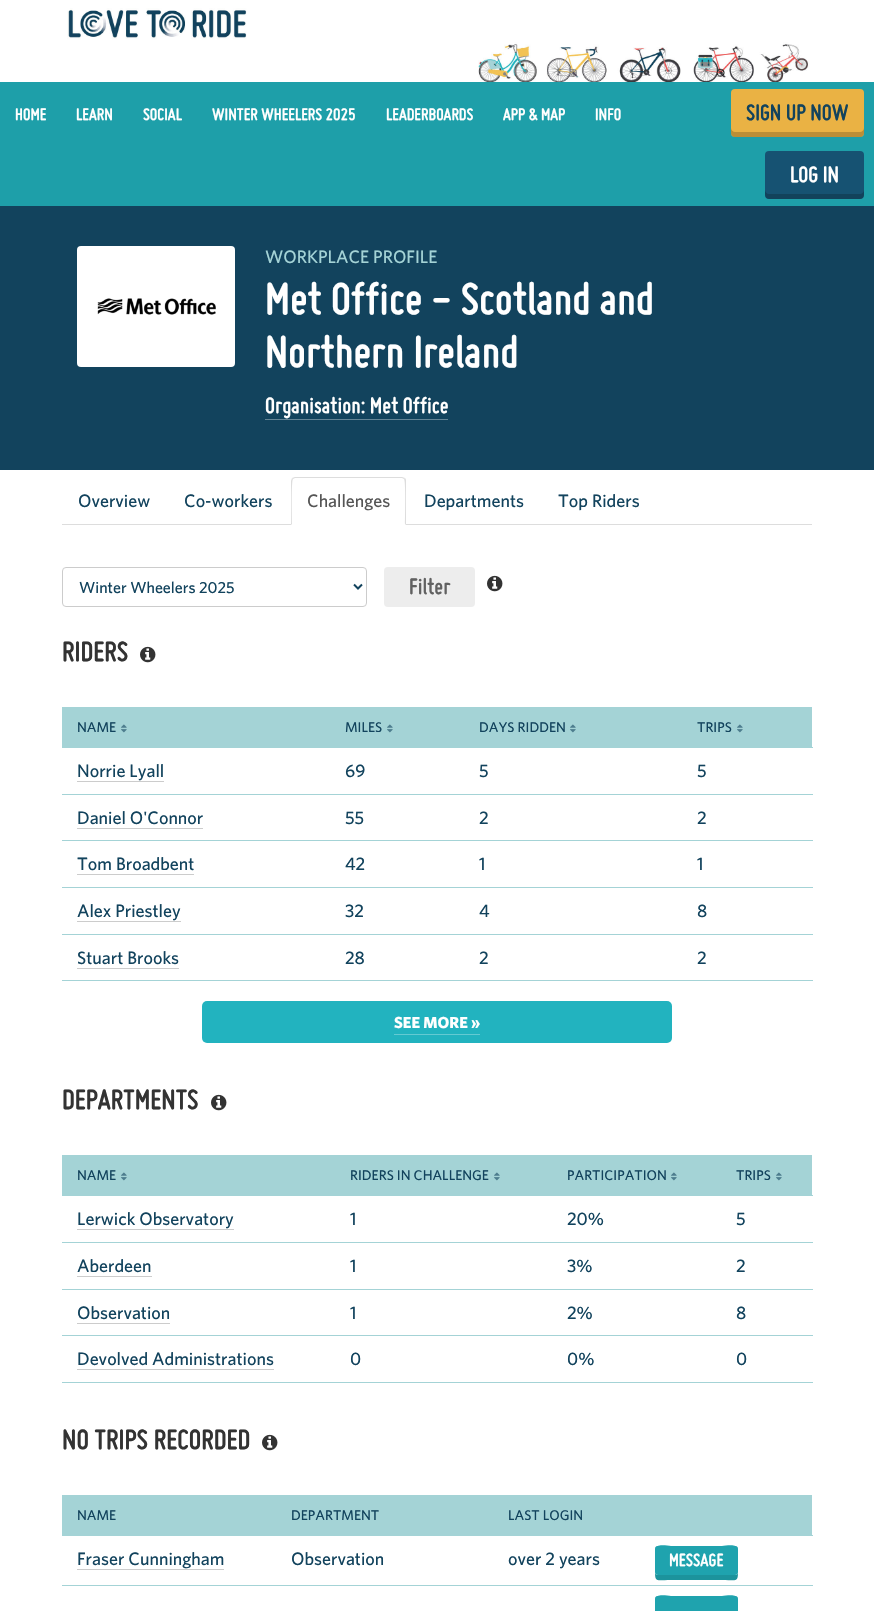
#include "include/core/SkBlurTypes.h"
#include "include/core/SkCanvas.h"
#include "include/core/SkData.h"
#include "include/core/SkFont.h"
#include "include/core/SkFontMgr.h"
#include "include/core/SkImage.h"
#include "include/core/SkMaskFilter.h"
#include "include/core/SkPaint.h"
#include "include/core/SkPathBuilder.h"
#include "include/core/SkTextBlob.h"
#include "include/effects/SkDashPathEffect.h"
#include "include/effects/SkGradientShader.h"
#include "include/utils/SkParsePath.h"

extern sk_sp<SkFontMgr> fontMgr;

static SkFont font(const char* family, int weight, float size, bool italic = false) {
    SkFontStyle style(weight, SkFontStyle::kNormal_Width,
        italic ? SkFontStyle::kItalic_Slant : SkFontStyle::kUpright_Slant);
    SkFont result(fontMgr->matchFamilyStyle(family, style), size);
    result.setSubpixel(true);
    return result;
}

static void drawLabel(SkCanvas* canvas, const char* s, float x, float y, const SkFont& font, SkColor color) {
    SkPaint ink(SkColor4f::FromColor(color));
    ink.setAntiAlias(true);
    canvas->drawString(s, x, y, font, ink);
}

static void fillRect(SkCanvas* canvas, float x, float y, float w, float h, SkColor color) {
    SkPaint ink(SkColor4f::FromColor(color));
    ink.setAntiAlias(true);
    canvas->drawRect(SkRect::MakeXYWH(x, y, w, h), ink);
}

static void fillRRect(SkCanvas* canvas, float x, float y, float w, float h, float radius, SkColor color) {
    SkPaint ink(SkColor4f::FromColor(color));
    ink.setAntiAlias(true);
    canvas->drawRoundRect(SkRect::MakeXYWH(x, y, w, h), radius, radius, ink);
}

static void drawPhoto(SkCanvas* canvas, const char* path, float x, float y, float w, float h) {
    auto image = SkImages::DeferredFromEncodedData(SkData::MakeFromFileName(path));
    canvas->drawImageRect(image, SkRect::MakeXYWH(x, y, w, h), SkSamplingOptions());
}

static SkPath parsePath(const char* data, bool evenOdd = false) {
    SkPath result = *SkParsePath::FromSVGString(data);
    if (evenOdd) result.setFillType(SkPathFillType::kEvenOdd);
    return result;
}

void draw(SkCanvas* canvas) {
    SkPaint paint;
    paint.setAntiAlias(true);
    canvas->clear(0xFFFFFFFF);
    drawPhoto(canvas, "assets/img1.png", 62, 8, 750, 74);
    fillRect(canvas, 0, 82, 874, 124, 0xFF1E9FA9);
    SkFont font1 = font("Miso", 700, 18, true);
    drawLabel(canvas, "HOME", 15, 120, font1, 0xFFFFFFFF);
    drawLabel(canvas, "LEARN", 76, 120, font1, 0xFFFFFFFF);
    drawLabel(canvas, "SOCIAL", 143, 120, font1, 0xFFFFFFFF);
    drawLabel(canvas, "WINTER WHEELERS 2025", 212, 120, font1, 0xFFFFFFFF);
    drawLabel(canvas, "LEADERBOARDS", 386, 120, font1, 0xFFFFFFFF);
    drawLabel(canvas, "APP & MAP", 503, 120, font1, 0xFFFFFFFF);
    drawLabel(canvas, "INFO", 595, 120, font1, 0xFFFFFFFF);
    fillRRect(canvas, 731, 89, 133, 48, 4, 0xFFEAB244);
    paint.setColor(0x33000000);
    canvas->drawPath(parsePath("M731 128V133C731 135 733 137 735 137H860C862 137 864 135 864 133V128C864 130 862 132 860 132H735C733 132 731 130 731 128Z"), paint);
    SkFont font2 = font("Miso", 700, 24, true);
    drawLabel(canvas, "SIGN UP NOW", 746, 120, font2, 0xFF12435D);
    fillRRect(canvas, 765, 151, 99, 48, 4, 0xFF165272);
    canvas->drawPath(parsePath("M765 190V195C765 197 767 199 769 199H860C862 199 864 197 864 195V190C864 192 862 194 860 194H769C767 194 765 192 765 190Z"), paint);
    drawLabel(canvas, "LOG IN", 790, 182, font2, 0xFFFFFFFF);
    fillRect(canvas, 0, 206, 874, 264, 0xFF12435D);
    fillRRect(canvas, 77, 246, 158, 121, 4, 0xFFFFFFFF);
    drawPhoto(canvas, "assets/img2.png", 97, 298, 119, 17);
    SkFont font3 = font("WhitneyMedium", 500, 18);
    drawLabel(canvas, "WORKPLACE PROFILE", 265, 263, font3, 0xFFA4D3D6);
    SkFont font4 = font("Miso", 700, 48, true);
    drawLabel(canvas, "Met Office - Scotland and", 265, 314, font4, 0xFFFFFFFF);
    drawLabel(canvas, "Northern Ireland", 265, 367, font4, 0xFFFFFFFF);
    drawLabel(canvas, "Organisation: Met Office", 265, 413, font2, 0xFFFFFFFF);
    fillRect(canvas, 265, 419, 183, 1, 0xFF658596);
    fillRect(canvas, 62, 524, 750, 1, 0xFFDDDDDD);
    drawLabel(canvas, "Overview", 78, 507, font3, 0xFF12435D);
    drawLabel(canvas, "Co-workers", 184, 507, font3, 0xFF12435D);
    paint.setColor(0xFFFFFFFF);
    canvas->drawPath(parsePath("M295 477H402C404 477 406 479 406 481V525H291V481C291 479 293 477 295 477Z"), paint);
    paint.setColor(0xFFDDDDDD);
    canvas->drawPath(parsePath("M295 477L292 478L293 479L295 478H402L404 479L405 478L402 477Z"), paint);
    canvas->drawPath(parsePath("M406 525V481C406 480 406 479 405 478L404 479C406 481 405 519 405 524Z"), paint);
    canvas->drawPath(parsePath("M291 525L292 524C292 519 291 481 293 479L292 478L291 481Z"), paint);
    drawLabel(canvas, "Challenges", 307, 507, font3, 0xFF555555);
    drawLabel(canvas, "Departments", 424, 507, font3, 0xFF12435D);
    drawLabel(canvas, "Top Riders", 558, 507, font3, 0xFF12435D);
    paint.setStroke(true);
    paint.setStrokeWidth(1);
    paint.setColor(0xFFCCCCCC);
    canvas->drawRoundRect(SkRect::MakeXYWH(62.5f, 567.5f, 304, 39), 3.5f, 3.5f, paint);
    paint.setStrokeWidth(2);
    paint.setColor(0xFF12435D);
    canvas->drawPath(parsePath("M354 584.5L358 588.5L362 584.5"), paint);
    SkFont font5 = font("WhitneyMedium", 500, 16);
    drawLabel(canvas, "Winter Wheelers 2025", 79, 593, font5, 0xFF12435D);
    fillRRect(canvas, 384, 567, 91, 40, 4, 0xFFEDEDED);
    drawLabel(canvas, "Filter", 409, 594, font2, 0xFF616161);
    drawPhoto(canvas, "assets/img3.png", 487, 575, 16, 17);
    SkFont font6 = font("Miso", 700, 30, true);
    drawLabel(canvas, "RIDERS", 62, 661, font6, 0xFF333333);
    drawPhoto(canvas, "assets/img3.png", 140, 646, 16, 17);
    fillRect(canvas, 62, 707, 750, 40, 0xFFA4D3D6);
    SkFont font7 = font("WhitneyMedium", 500, 14);
    drawLabel(canvas, "NAME", 77, 732, font7, 0xFF12435D);
    drawPhoto(canvas, "assets/img4.png", 121, 724, 6, 9);
    drawLabel(canvas, "MILES", 345, 732, font7, 0xFF12435D);
    drawPhoto(canvas, "assets/img4.png", 387, 724, 6, 9);
    drawLabel(canvas, "DAYS RIDDEN", 479, 732, font7, 0xFF12435D);
    drawPhoto(canvas, "assets/img4.png", 570, 724, 6, 9);
    fillRect(canvas, 62, 747, 751, 1, 0xFFA4D3D6);
    drawLabel(canvas, "TRIPS", 697, 732, font7, 0xFF12435D);
    drawPhoto(canvas, "assets/img4.png", 737, 724, 6, 9);
    drawLabel(canvas, "Norrie Lyall", 77, 777, font3, 0xFF12435D);
    fillRect(canvas, 77, 781, 87, 1, 0xFFCCCCCC);
    drawLabel(canvas, "69", 345, 777, font3, 0xFF12435D);
    drawLabel(canvas, "5", 479, 777, font3, 0xFF12435D);
    fillRect(canvas, 62, 794, 751, 1, 0xFFA4D3D6);
    drawLabel(canvas, "5", 697, 777, font3, 0xFF12435D);
    drawLabel(canvas, "Daniel O'Connor", 77, 824, font3, 0xFF12435D);
    fillRect(canvas, 77, 828, 126, 1, 0xFFCCCCCC);
    drawLabel(canvas, "55", 345, 824, font3, 0xFF12435D);
    drawLabel(canvas, "2", 479, 824, font3, 0xFF12435D);
    fillRect(canvas, 62, 840, 751, 1, 0xFFA4D3D6);
    drawLabel(canvas, "2", 697, 824, font3, 0xFF12435D);
    drawLabel(canvas, "Tom Broadbent", 77, 870, font3, 0xFF12435D);
    fillRect(canvas, 77, 874, 117, 1, 0xFFCCCCCC);
    drawLabel(canvas, "42", 345, 870, font3, 0xFF12435D);
    drawLabel(canvas, "1", 479, 870, font3, 0xFF12435D);
    fillRect(canvas, 62, 887, 751, 1, 0xFFA4D3D6);
    drawLabel(canvas, "1", 697, 870, font3, 0xFF12435D);
    drawLabel(canvas, "Alex Priestley", 77, 917, font3, 0xFF12435D);
    fillRect(canvas, 77, 921, 104, 1, 0xFFCCCCCC);
    drawLabel(canvas, "32", 345, 917, font3, 0xFF12435D);
    drawLabel(canvas, "4", 479, 917, font3, 0xFF12435D);
    fillRect(canvas, 62, 934, 751, 1, 0xFFA4D3D6);
    drawLabel(canvas, "8", 697, 917, font3, 0xFF12435D);
    drawLabel(canvas, "Stuart Brooks", 77, 964, font3, 0xFF12435D);
    fillRect(canvas, 77, 968, 102, 1, 0xFFCCCCCC);
    drawLabel(canvas, "28", 345, 964, font3, 0xFF12435D);
    drawLabel(canvas, "2", 479, 964, font3, 0xFF12435D);
    fillRect(canvas, 62, 980, 751, 1, 0xFFA4D3D6);
    drawLabel(canvas, "2", 697, 964, font3, 0xFF12435D);
    fillRRect(canvas, 202, 1001, 470, 42, 5, 0xFF22B3BF);
    fillRect(canvas, 394, 1034, 86, 1, 0xFF64CAD2);
    SkFont font8 = font("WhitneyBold", 700, 16);
    drawLabel(canvas, "SEE MORE »", 394, 1028, font8, 0xFFFFFFFF);
    drawLabel(canvas, "DEPARTMENTS", 62, 1109, font6, 0xFF333333);
    drawPhoto(canvas, "assets/img3.png", 211, 1094, 16, 17);
    fillRect(canvas, 62, 1155, 659, 41, 0xFFA4D3D6);
    drawLabel(canvas, "NAME", 77, 1180, font7, 0xFF12435D);
    drawPhoto(canvas, "assets/img4.png", 121, 1172, 6, 9);
    drawLabel(canvas, "RIDERS IN CHALLENGE", 350, 1180, font7, 0xFF12435D);
    drawPhoto(canvas, "assets/img4.png", 494, 1172, 6, 9);
    drawLabel(canvas, "PARTICIPATION", 567, 1180, font7, 0xFF12435D);
    drawPhoto(canvas, "assets/img4.png", 671, 1172, 6, 9);
    fillRect(canvas, 721, 1155, 91, 40, 0xFFA4D3D6);
    fillRect(canvas, 720, 1195, 93, 1, 0xFFA4D3D6);
    drawLabel(canvas, "TRIPS", 736, 1180, font7, 0xFF12435D);
    drawPhoto(canvas, "assets/img4.png", 776, 1172, 6, 9);
    drawLabel(canvas, "Lerwick Observatory", 77, 1225, font3, 0xFF12435D);
    fillRect(canvas, 77, 1229, 157, 1, 0xFFCCCCCC);
    drawLabel(canvas, "1", 350, 1225, font3, 0xFF12435D);
    drawLabel(canvas, "20%", 567, 1225, font3, 0xFF12435D);
    fillRect(canvas, 62, 1242, 751, 1, 0xFFA4D3D6);
    drawLabel(canvas, "5", 736, 1225, font3, 0xFF12435D);
    drawLabel(canvas, "Aberdeen", 77, 1272, font3, 0xFF12435D);
    fillRect(canvas, 77, 1276, 75, 1, 0xFFCCCCCC);
    drawLabel(canvas, "1", 350, 1272, font3, 0xFF12435D);
    drawLabel(canvas, "3%", 567, 1272, font3, 0xFF12435D);
    fillRect(canvas, 62, 1289, 751, 1, 0xFFA4D3D6);
    drawLabel(canvas, "2", 736, 1272, font3, 0xFF12435D);
    drawLabel(canvas, "Observation", 77, 1319, font3, 0xFF12435D);
    fillRect(canvas, 77, 1323, 93, 1, 0xFFCCCCCC);
    drawLabel(canvas, "1", 350, 1319, font3, 0xFF12435D);
    drawLabel(canvas, "2%", 567, 1319, font3, 0xFF12435D);
    fillRect(canvas, 62, 1335, 751, 1, 0xFFA4D3D6);
    drawLabel(canvas, "8", 736, 1319, font3, 0xFF12435D);
    drawLabel(canvas, "Devolved Administrations", 77, 1365, font3, 0xFF12435D);
    fillRect(canvas, 77, 1369, 197, 1, 0xFFCCCCCC);
    drawLabel(canvas, "0", 350, 1365, font3, 0xFF12435D);
    drawLabel(canvas, "0%", 567, 1365, font3, 0xFF12435D);
    fillRect(canvas, 62, 1382, 751, 1, 0xFFA4D3D6);
    drawLabel(canvas, "0", 736, 1365, font3, 0xFF12435D);
    drawLabel(canvas, "NO TRIPS RECORDED", 62, 1449, font6, 0xFF333333);
    drawPhoto(canvas, "assets/img3.png", 262, 1434, 16, 17);
    fillRect(canvas, 62, 1495, 750, 40, 0xFFA4D3D6);
    drawLabel(canvas, "NAME", 77, 1520, font7, 0xFF12435D);
    drawLabel(canvas, "DEPARTMENT", 291, 1520, font7, 0xFF12435D);
    drawLabel(canvas, "LAST LOGIN", 508, 1520, font7, 0xFF12435D);
    fillRect(canvas, 62, 1535, 751, 1, 0xFFA4D3D6);
    drawLabel(canvas, "Fraser Cunningham", 77, 1565, font3, 0xFF12435D);
    fillRect(canvas, 77, 1569, 147, 1, 0xFFCCCCCC);
    drawLabel(canvas, "Observation", 291, 1565, font3, 0xFF12435D);
    drawLabel(canvas, "over 2 years", 508, 1565, font3, 0xFF12435D);
    paint.setStroke(false);
    paint.setColor(0xFF1C939C);
    canvas->drawPath(parsePath("M655 1572C655 1583 657 1580 671 1580H722C736 1580 738 1583 738 1572C738 1574 737 1575 735 1575H658C656 1575 655 1574 655 1572Z"), paint);
    fillRRect(canvas, 655, 1546, 83, 29, 3, 0xFF1FA3AE);
    paint.setColor(0xFF1FA3AE);
    canvas->drawPath(parsePath("M658 1547H735C737 1547 738 1548 738 1550C738 1543 726 1546 722 1546H671C667 1546 655 1543 655 1550C655 1548 656 1547 658 1547Z"), paint);
    SkFont font9 = font("Miso", 700, 19, true);
    drawLabel(canvas, "MESSAGE", 669, 1566, font9, 0xFFFFFFFF);
    fillRect(canvas, 62, 1585, 751, 1, 0xFFA4D3D6);
    fillRRect(canvas, 655, 1596, 83, 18, 3, 0xFF1FA3AE);
    canvas->drawPath(parsePath("M658 1597H735C737 1597 738 1598 738 1600C738 1593 726 1596 722 1596H671C667 1596 655 1593 655 1600C655 1598 656 1597 658 1597Z"), paint);
}
